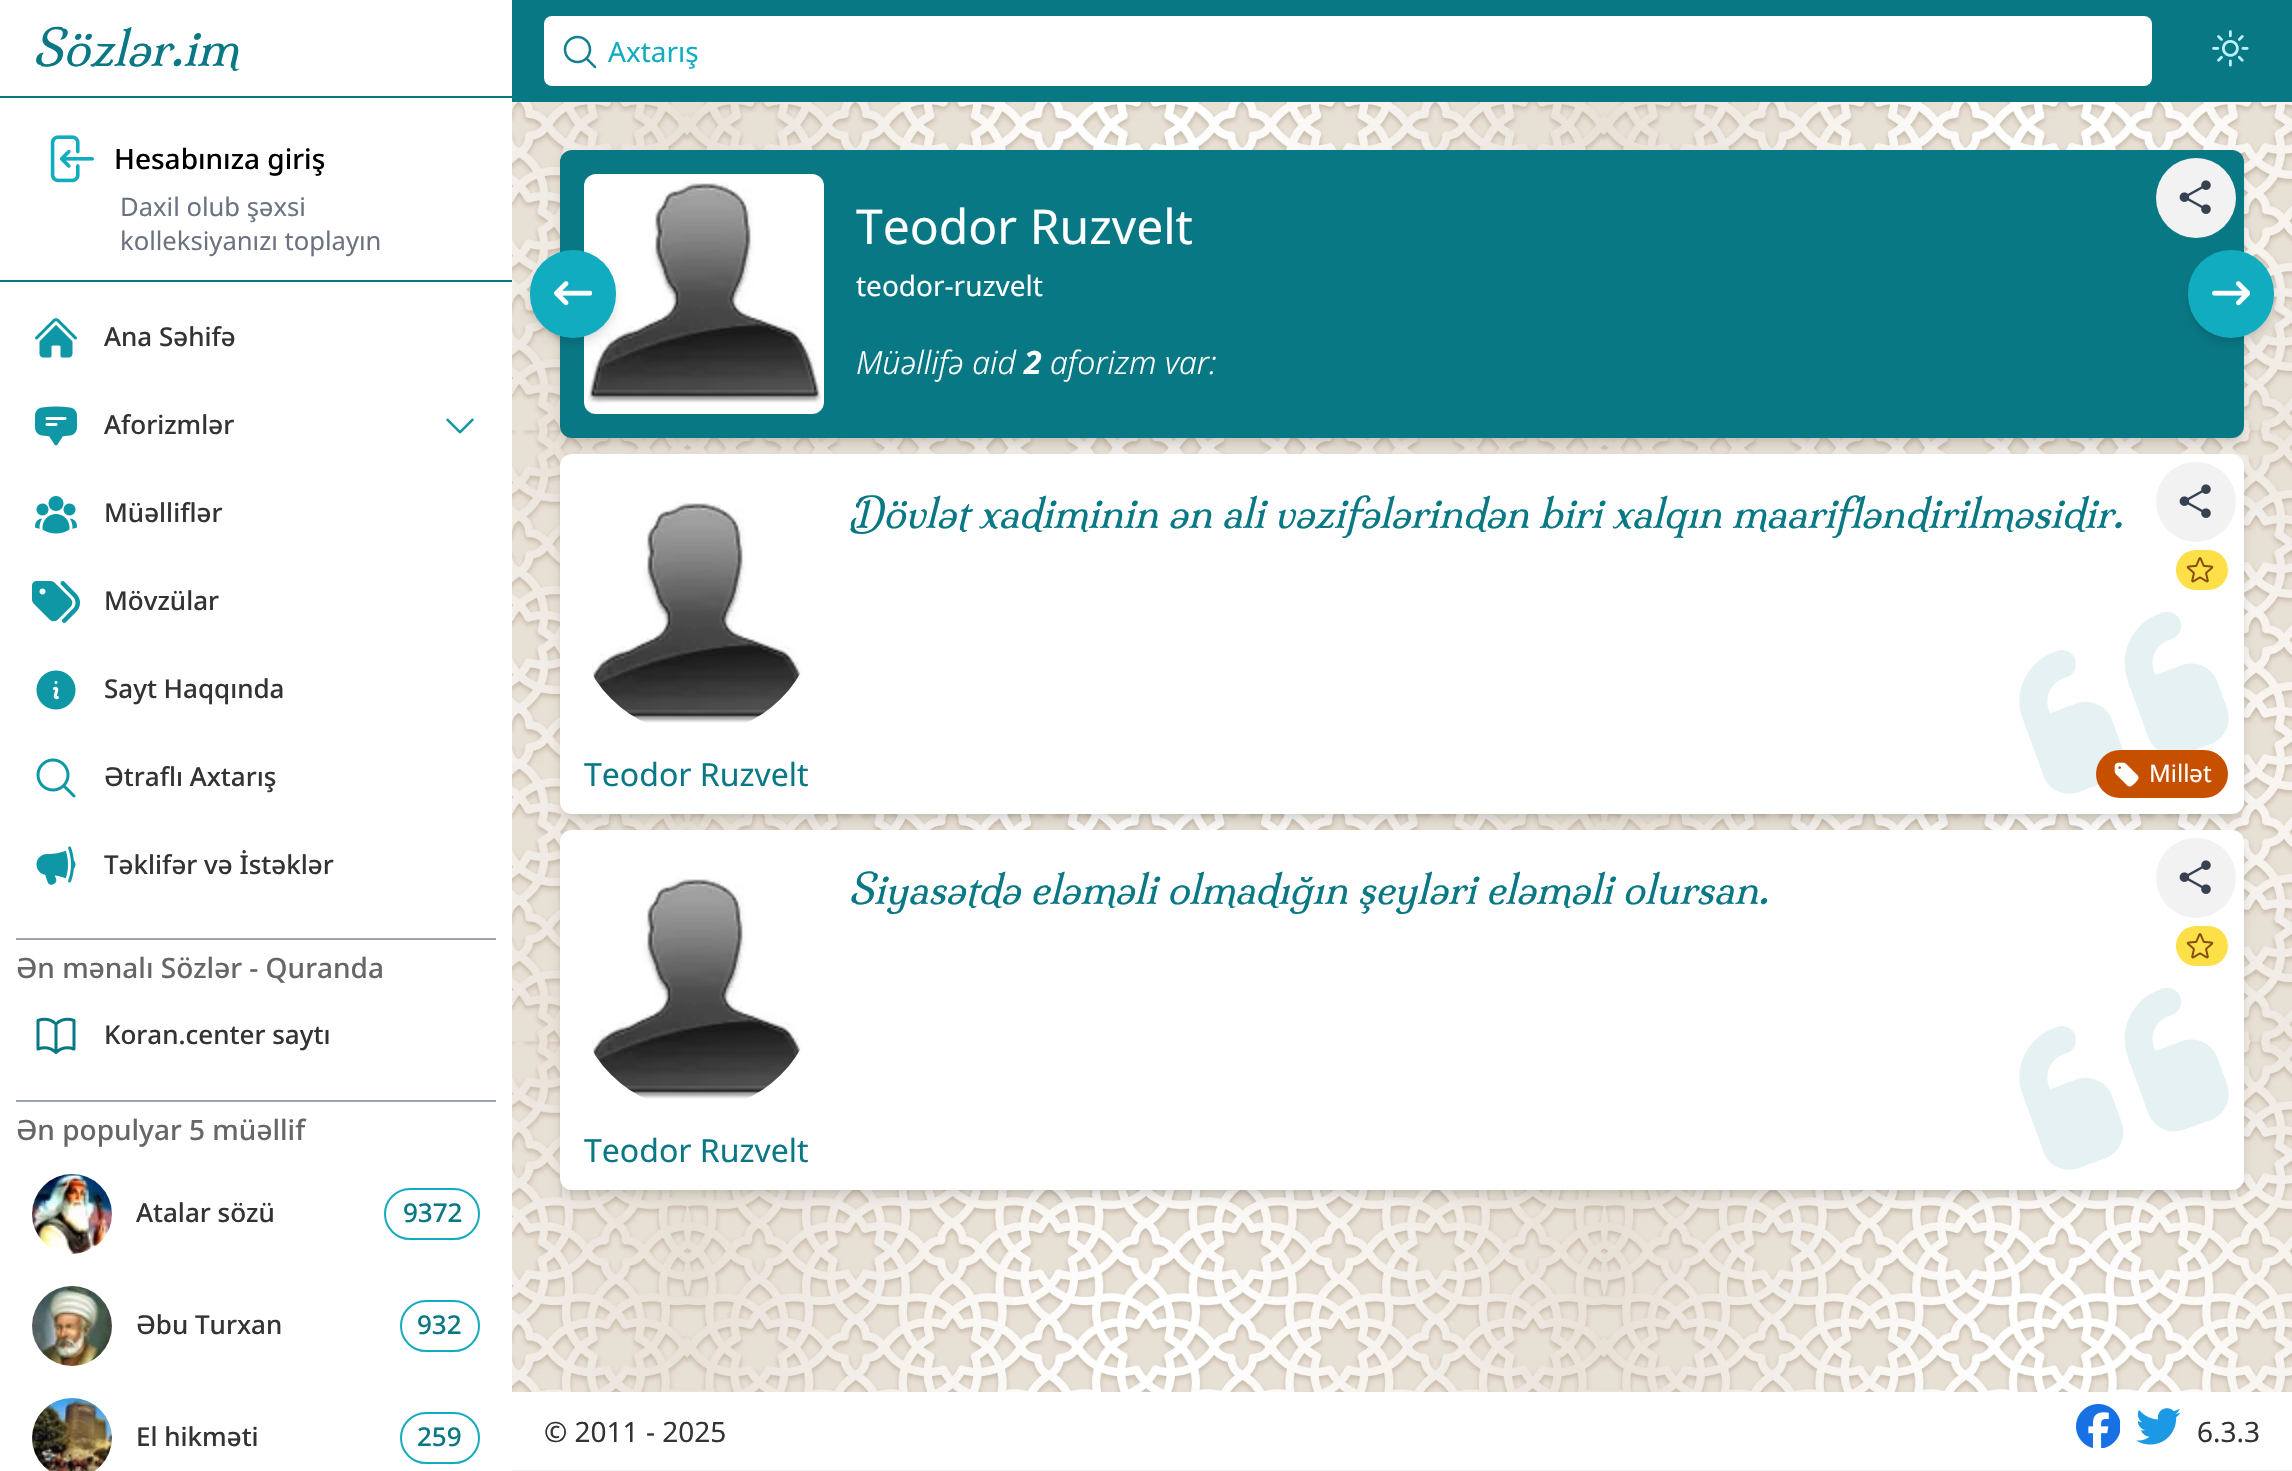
#include "include/core/SkBlurTypes.h"
#include "include/core/SkCanvas.h"
#include "include/core/SkData.h"
#include "include/core/SkFont.h"
#include "include/core/SkFontMgr.h"
#include "include/core/SkImage.h"
#include "include/core/SkMaskFilter.h"
#include "include/core/SkPaint.h"
#include "include/core/SkPathBuilder.h"
#include "include/core/SkTextBlob.h"
#include "include/effects/SkDashPathEffect.h"
#include "include/effects/SkGradientShader.h"
#include "include/utils/SkParsePath.h"

extern sk_sp<SkFontMgr> fontMgr;

static SkFont font(const char* family, int weight, float size, bool italic = false) {
    SkFontStyle style(weight, SkFontStyle::kNormal_Width,
        italic ? SkFontStyle::kItalic_Slant : SkFontStyle::kUpright_Slant);
    SkFont result(fontMgr->matchFamilyStyle(family, style), size);
    result.setSubpixel(true);
    return result;
}

static void drawLabel(SkCanvas* canvas, const char* s, float x, float y, const SkFont& font, SkColor color) {
    SkPaint ink(SkColor4f::FromColor(color));
    ink.setAntiAlias(true);
    canvas->drawString(s, x, y, font, ink);
}

static void fillRect(SkCanvas* canvas, float x, float y, float w, float h, SkColor color) {
    SkPaint ink(SkColor4f::FromColor(color));
    ink.setAntiAlias(true);
    canvas->drawRect(SkRect::MakeXYWH(x, y, w, h), ink);
}

static void fillRRect(SkCanvas* canvas, float x, float y, float w, float h, float radius, SkColor color) {
    SkPaint ink(SkColor4f::FromColor(color));
    ink.setAntiAlias(true);
    canvas->drawRoundRect(SkRect::MakeXYWH(x, y, w, h), radius, radius, ink);
}

static void drawPhoto(SkCanvas* canvas, const char* path, float x, float y, float w, float h) {
    auto image = SkImages::DeferredFromEncodedData(SkData::MakeFromFileName(path));
    canvas->drawImageRect(image, SkRect::MakeXYWH(x, y, w, h), SkSamplingOptions());
}

static SkPath parsePath(const char* data, bool evenOdd = false) {
    SkPath result = *SkParsePath::FromSVGString(data);
    if (evenOdd) result.setFillType(SkPathFillType::kEvenOdd);
    return result;
}

void draw(SkCanvas* canvas) {
    SkPaint paint;
    paint.setAntiAlias(true);
    canvas->clear(0xFFF3F4F6);
    fillRect(canvas, 0, 0, 512, 1471, 0xFFFFFFFF);
    SkFont font1 = font("Milonga", 400, 48, true);
    drawLabel(canvas, "Sözlər.im", 32, 66, font1, 0xFF097885);
    fillRect(canvas, 0, 96, 512, 2, 0xFF097885);
    drawPhoto(canvas, "assets/img1.png", 50, 135, 44, 48);
    SkFont font2 = font("Noto Sans", 500, 28);
    drawLabel(canvas, "Hesabınıza giriş", 114, 169, font2, 0xFF000000);
    SkFont font3 = font("Noto Sans", 400, 25.6f);
    drawLabel(canvas, "Daxil olub şəxsi", 120, 216, font3, 0xFF6B7280);
    drawLabel(canvas, "kolleksiyanızı toplayın", 120, 250, font3, 0xFF6B7280);
    fillRect(canvas, 0, 280, 512, 2, 0xFF097885);
    drawPhoto(canvas, "assets/img2.png", 35, 318, 42, 40);
    SkFont font4 = font("Noto Sans", 500, 26);
    drawLabel(canvas, "Ana Səhifə", 104, 346, font4, 0xFF333333);
    drawPhoto(canvas, "assets/img3.png", 35, 406, 42, 40);
    drawLabel(canvas, "Aforizmlər", 104, 434, font4, 0xFF333333);
    drawPhoto(canvas, "assets/img4.png", 446, 418, 28, 16);
    drawPhoto(canvas, "assets/img5.png", 35, 496, 42, 38);
    drawLabel(canvas, "Müəlliflər", 104, 522, font4, 0xFF333333);
    drawPhoto(canvas, "assets/img6.png", 32, 581, 48, 42);
    drawLabel(canvas, "Mövzülar", 104, 610, font4, 0xFF333333);
    drawPhoto(canvas, "assets/img7.png", 36, 670, 40, 40);
    drawLabel(canvas, "Sayt Haqqında", 104, 698, font4, 0xFF333333);
    drawPhoto(canvas, "assets/img8.png", 36, 758, 40, 40);
    drawLabel(canvas, "Ətraflı Axtarış", 104, 786, font4, 0xFF333333);
    drawPhoto(canvas, "assets/img9.png", 36, 846, 40, 39);
    drawLabel(canvas, "Təklifər və İstəklər", 104, 874, font4, 0xFF333333);
    fillRect(canvas, 16, 938, 480, 2, 0xFF9CA3AF);
    drawLabel(canvas, "Ən mənalı Sözlər - Quranda", 16, 978, font2, 0xFF666666);
    paint.setStroke(true);
    paint.setStrokeWidth(3);
    paint.setStrokeCap(SkPaint::kRound_Cap);
    paint.setStrokeJoin(SkPaint::kRound_Join);
    paint.setColor(0xFF097885);
    canvas->drawPath(parsePath("M56 1024C51 1019.5 44 1018.5 38 1020.5V1049C44 1047 51 1048 56 1052.5M56 1024C61 1019.5 68 1018.5 74 1020.5V1049C68 1047 61 1048 56 1052.5M56 1024V1052.5"), paint);
    drawLabel(canvas, "Koran.center saytı", 104, 1044, font4, 0xFF333333);
    fillRect(canvas, 16, 1100, 480, 2, 0xFF9CA3AF);
    drawLabel(canvas, "Ən populyar 5 müəllif", 16, 1140, font2, 0xFF666666);
    drawPhoto(canvas, "assets/img10.png", 32, 1174, 80, 80);
    drawLabel(canvas, "Atalar sözü", 136, 1222, font4, 0xFF333333);
    paint.setStrokeWidth(2);
    paint.setStrokeCap(SkPaint::kButt_Cap);
    paint.setStrokeJoin(SkPaint::kMiter_Join);
    paint.setColor(0xFF11ACBF);
    canvas->drawRoundRect(SkRect::MakeXYWH(385, 1189, 94, 50), 25, 25, paint);
    drawLabel(canvas, "9372", 403, 1222, font4, 0xFF097885);
    drawPhoto(canvas, "assets/img11.png", 32, 1286, 80, 80);
    drawLabel(canvas, "Əbu Turxan", 136, 1334, font4, 0xFF333333);
    canvas->drawRoundRect(SkRect::MakeXYWH(401, 1301, 78, 50), 25, 25, paint);
    drawLabel(canvas, "932", 417, 1334, font4, 0xFF097885);
    drawPhoto(canvas, "assets/img12.png", 32, 1398, 80, 73);
    drawLabel(canvas, "El hikməti", 136, 1446, font4, 0xFF333333);
    canvas->drawRoundRect(SkRect::MakeXYWH(401, 1413, 78, 50), 25, 25, paint);
    drawLabel(canvas, "259", 417, 1446, font4, 0xFF097885);
    fillRect(canvas, 512, 0, 1780, 102, 0xFF097885);
    fillRRect(canvas, 544, 16, 1608, 70, 8, 0xFFFFFFFF);
    drawPhoto(canvas, "assets/img13.png", 563, 35, 34, 34);
    SkFont font5 = font("Noto Sans", 400, 28);
    drawLabel(canvas, "Axtarış", 608, 62, font5, 0xFF11ACBF);
    drawPhoto(canvas, "assets/img14.png", 2212, 30, 37, 37);
    drawPhoto(canvas, "assets/img15.png", 512, 102, 1780, 1290);
    paint.setStroke(false);
    paint.setColor(0x1A000000);
    paint.setMaskFilter(SkMaskFilter::MakeBlur(kNormal_SkBlurStyle, 4));
    canvas->drawRoundRect(SkRect::MakeXYWH(564, 158, 1676, 280), 8, 8, paint);
    paint.setMaskFilter(nullptr);
    paint.setMaskFilter(SkMaskFilter::MakeBlur(kNormal_SkBlurStyle, 6));
    canvas->drawRoundRect(SkRect::MakeXYWH(562, 160, 1680, 284), 10, 10, paint);
    paint.setMaskFilter(nullptr);
    fillRRect(canvas, 560, 150, 1684, 288, 12, 0xFF097885);
    paint.setColor(0xFFF2F2F2);
    canvas->drawCircle(2196, 198, 40, paint);
    drawPhoto(canvas, "assets/img16.png", 2179, 180, 32, 34);
    drawPhoto(canvas, "assets/img18.png", 584, 174, 240, 240);
    paint.setColor(0x1A000000);
    paint.setMaskFilter(SkMaskFilter::MakeBlur(kNormal_SkBlurStyle, 4));
    canvas->drawRoundRect(SkRect::MakeXYWH(534, 258, 78, 80), 39, 39, paint);
    paint.setMaskFilter(nullptr);
    paint.setMaskFilter(SkMaskFilter::MakeBlur(kNormal_SkBlurStyle, 6));
    canvas->drawRoundRect(SkRect::MakeXYWH(532, 260, 82, 84), 41, 41, paint);
    paint.setMaskFilter(nullptr);
    fillRRect(canvas, 530, 250, 86, 88, 43, 0xFF11ACBF);
    drawPhoto(canvas, "assets/img17.png", 554, 281, 38, 25);
    SkFont font6 = font("Noto Sans", 400, 48);
    drawLabel(canvas, "Teodor Ruzvelt", 856, 244, font6, 0xFFFFFFFF);
    drawLabel(canvas, "teodor-ruzvelt", 856, 296, font5, 0xFFFFFFFF);
    SkFont font7 = font("Noto Sans", 300, 32, true);
    drawLabel(canvas, "Müəllifə aid", 856, 374, font7, 0xFFFFFFFF);
    SkFont font8 = font("Noto Sans", 700, 32, true);
    drawLabel(canvas, "2", 1024, 374, font8, 0xFFFFFFFF);
    drawLabel(canvas, "aforizm var:", 1050, 374, font7, 0xFFFFFFFF);
    paint.setMaskFilter(SkMaskFilter::MakeBlur(kNormal_SkBlurStyle, 4));
    canvas->drawRoundRect(SkRect::MakeXYWH(2192, 258, 78, 80), 39, 39, paint);
    paint.setMaskFilter(nullptr);
    paint.setMaskFilter(SkMaskFilter::MakeBlur(kNormal_SkBlurStyle, 6));
    canvas->drawRoundRect(SkRect::MakeXYWH(2190, 260, 82, 84), 41, 41, paint);
    paint.setMaskFilter(nullptr);
    fillRRect(canvas, 2188, 250, 86, 88, 43, 0xFF11ACBF);
    drawPhoto(canvas, "assets/img19.png", 2212, 281, 38, 25);
    paint.setMaskFilter(SkMaskFilter::MakeBlur(kNormal_SkBlurStyle, 4));
    canvas->drawRoundRect(SkRect::MakeXYWH(564, 462, 1676, 352), 8, 8, paint);
    paint.setMaskFilter(nullptr);
    paint.setMaskFilter(SkMaskFilter::MakeBlur(kNormal_SkBlurStyle, 6));
    canvas->drawRoundRect(SkRect::MakeXYWH(562, 464, 1680, 356), 10, 10, paint);
    paint.setMaskFilter(nullptr);
    fillRRect(canvas, 560, 454, 1684, 360, 12, 0xFFFFFFFF);
    drawPhoto(canvas, "assets/img20.png", 592, 502, 210, 221);
    SkFont font9 = font("Milonga", 400, 40, true);
    drawLabel(canvas, "Dövlət xadiminin ən ali vəzifələrindən biri xalqın maarifləndirilməsidir.", 848, 528, font9, 0xFF097885);
    paint.setColor(0xFFF2F2F2);
    canvas->drawCircle(2196, 502, 40, paint);
    drawPhoto(canvas, "assets/img16.png", 2179, 484, 32, 34);
    fillRRect(canvas, 2176, 550, 52, 40, 20, 0xFFFDE047);
    drawPhoto(canvas, "assets/img21.png", 2186, 557, 28, 26);
    drawPhoto(canvas, "assets/img22.png", 2019, 611, 210, 183);
    SkFont font10 = font("Noto Sans", 400, 32);
    drawLabel(canvas, "Teodor Ruzvelt", 584, 786, font10, 0xFF097885);
    fillRRect(canvas, 2096, 750, 132, 48, 24, 0xFFC75000);
    drawPhoto(canvas, "assets/img23.png", 2114, 762, 25, 25);
    SkFont font11 = font("Noto Sans", 400, 24);
    drawLabel(canvas, "Millət", 2149, 782, font11, 0xFFFFFFFF);
    paint.setColor(0x1A000000);
    paint.setMaskFilter(SkMaskFilter::MakeBlur(kNormal_SkBlurStyle, 4));
    canvas->drawRoundRect(SkRect::MakeXYWH(564, 838, 1676, 352), 8, 8, paint);
    paint.setMaskFilter(nullptr);
    paint.setMaskFilter(SkMaskFilter::MakeBlur(kNormal_SkBlurStyle, 6));
    canvas->drawRoundRect(SkRect::MakeXYWH(562, 840, 1680, 356), 10, 10, paint);
    paint.setMaskFilter(nullptr);
    fillRRect(canvas, 560, 830, 1684, 360, 12, 0xFFFFFFFF);
    drawPhoto(canvas, "assets/img24.png", 592, 878, 210, 221);
    drawLabel(canvas, "Siyasətdə eləməli olmadığın şeyləri eləməli olursan.", 848, 904, font9, 0xFF097885);
    paint.setColor(0xFFF2F2F2);
    canvas->drawCircle(2196, 878, 40, paint);
    drawPhoto(canvas, "assets/img16.png", 2179, 860, 32, 34);
    fillRRect(canvas, 2176, 926, 52, 40, 20, 0xFFFDE047);
    drawPhoto(canvas, "assets/img21.png", 2186, 933, 28, 26);
    drawLabel(canvas, "Teodor Ruzvelt", 584, 1162, font10, 0xFF097885);
    drawPhoto(canvas, "assets/img22.png", 2019, 987, 210, 183);
    fillRect(canvas, 512, 1392, 1780, 78, 0xFFFFFFFF);
    drawLabel(canvas, "© 2011 - 2025", 544, 1442, font5, 0xFF333333);
    drawPhoto(canvas, "assets/img25.png", 2076, 1404, 44, 44);
    drawPhoto(canvas, "assets/img26.png", 2136, 1408, 44, 37);
    drawLabel(canvas, "6.3.3", 2197, 1442, font5, 0xFF333333);
}
